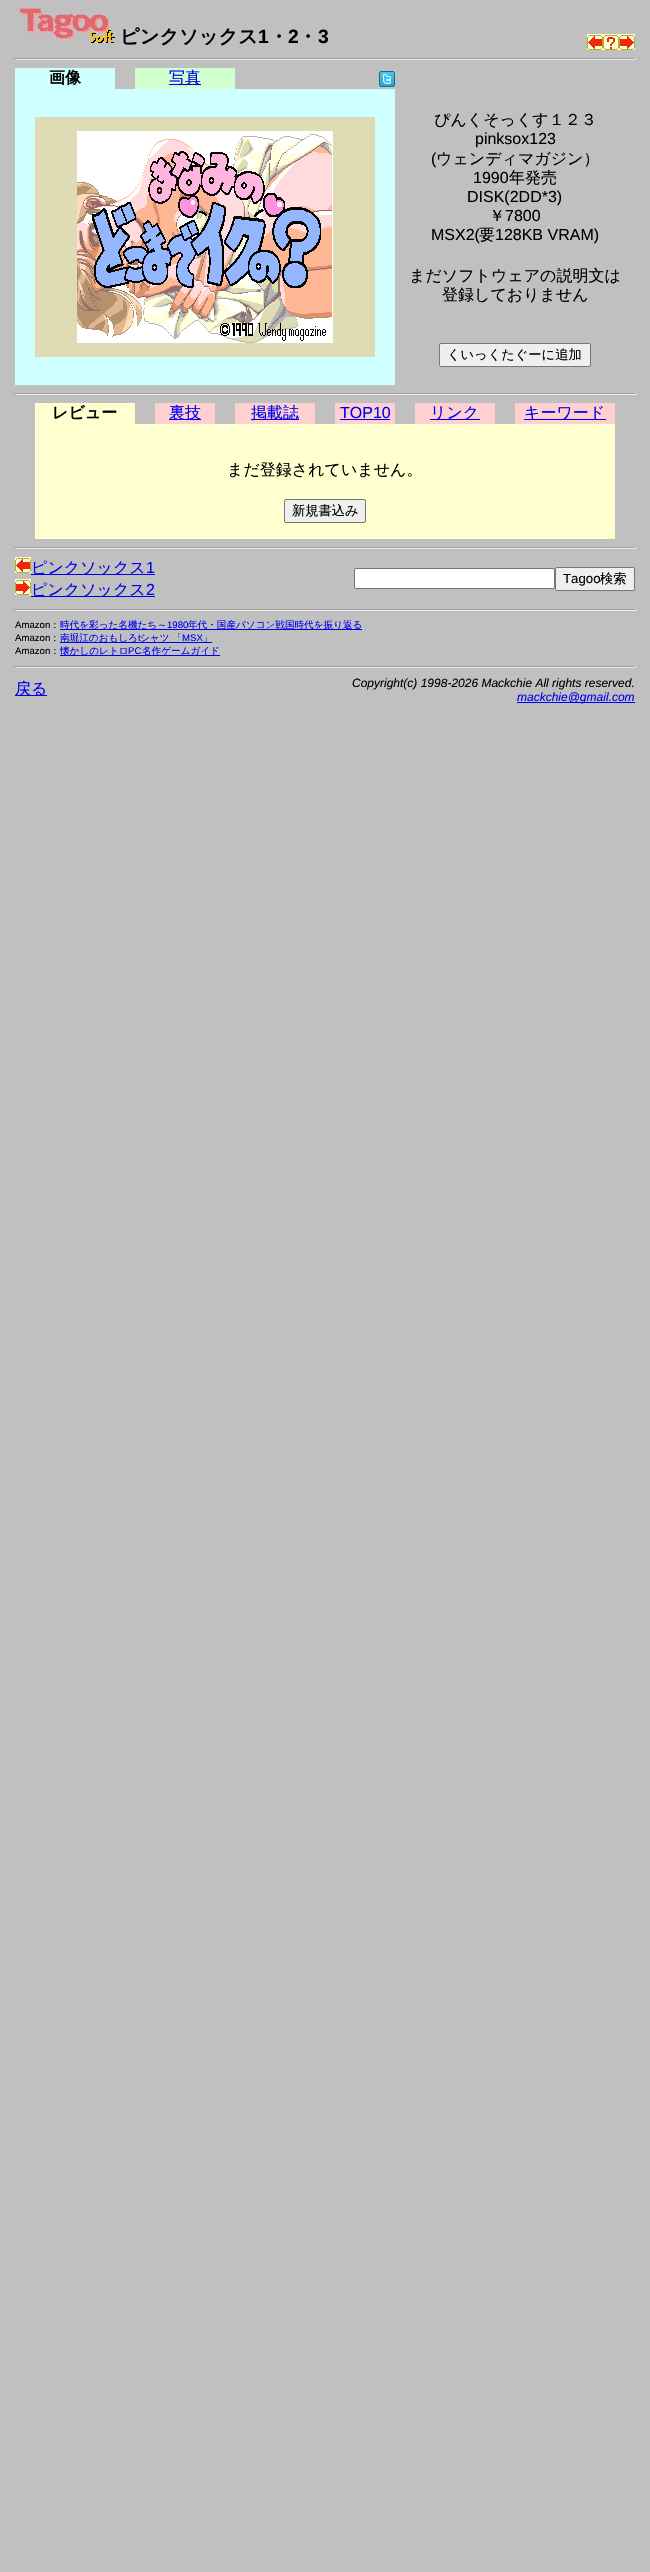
#include "include/core/SkBlurTypes.h"
#include "include/core/SkCanvas.h"
#include "include/core/SkData.h"
#include "include/core/SkFont.h"
#include "include/core/SkFontMgr.h"
#include "include/core/SkImage.h"
#include "include/core/SkMaskFilter.h"
#include "include/core/SkPaint.h"
#include "include/core/SkPathBuilder.h"
#include "include/core/SkTextBlob.h"
#include "include/effects/SkDashPathEffect.h"
#include "include/effects/SkGradientShader.h"
#include "include/utils/SkParsePath.h"

extern sk_sp<SkFontMgr> fontMgr;

static SkFont font(const char* family, int weight, float size, bool italic = false) {
    SkFontStyle style(weight, SkFontStyle::kNormal_Width,
        italic ? SkFontStyle::kItalic_Slant : SkFontStyle::kUpright_Slant);
    SkFont result(fontMgr->matchFamilyStyle(family, style), size);
    result.setSubpixel(true);
    return result;
}

static void drawLabel(SkCanvas* canvas, const char* s, float x, float y, const SkFont& font, SkColor color) {
    SkPaint ink(SkColor4f::FromColor(color));
    ink.setAntiAlias(true);
    canvas->drawString(s, x, y, font, ink);
}

static void fillRect(SkCanvas* canvas, float x, float y, float w, float h, SkColor color) {
    SkPaint ink(SkColor4f::FromColor(color));
    ink.setAntiAlias(true);
    canvas->drawRect(SkRect::MakeXYWH(x, y, w, h), ink);
}

static void drawPhoto(SkCanvas* canvas, const char* path, float x, float y, float w, float h) {
    auto image = SkImages::DeferredFromEncodedData(SkData::MakeFromFileName(path));
    canvas->drawImageRect(image, SkRect::MakeXYWH(x, y, w, h), SkSamplingOptions());
}

void draw(SkCanvas* canvas) {
    SkPaint paint;
    paint.setAntiAlias(true);
    canvas->clear(0xFFC0C0C0);
    drawPhoto(canvas, "assets/img1.png", 20, 8, 95, 35);
    SkFont font1 = font("WenQuanYi Zen Hei", 700, 19.25f);
    drawLabel(canvas, "ピンクソックス", 120, 43, font1, 0xFF000000);
    SkFont font2 = font("Liberation Sans", 700, 19.25f);
    drawLabel(canvas, "1", 258, 43, font2, 0xFF000000);
    drawLabel(canvas, "・", 269, 43, font1, 0xFF000000);
    drawLabel(canvas, "2", 288, 43, font2, 0xFF000000);
    drawLabel(canvas, "・", 298, 43, font1, 0xFF000000);
    drawLabel(canvas, "3", 318, 43, font2, 0xFF000000);
    drawPhoto(canvas, "assets/img2.png", 587, 34, 16, 16);
    drawPhoto(canvas, "assets/img3.png", 603, 34, 16, 16);
    drawPhoto(canvas, "assets/img4.png", 619, 34, 16, 16);
    fillRect(canvas, 14, 58, 622, 1, 0xFF9F9F9F);
    fillRect(canvas, 635, 58, 1, 2, 0xFFEEEEEE);
    fillRect(canvas, 14, 59, 622, 1, 0xFFEEEEEE);
    fillRect(canvas, 14, 58, 1, 2, 0xFF9F9F9F);
    fillRect(canvas, 15, 68, 100, 21, 0xFFD0FFFF);
    SkFont font3 = font("WenQuanYi Zen Hei", 700, 16);
    drawLabel(canvas, "画像", 49, 83, font3, 0xFF000000);
    fillRect(canvas, 135, 68, 100, 21, 0xFFD0FFD0);
    fillRect(canvas, 169, 84, 32, 1, 0xFF0000EE);
    SkFont font4 = font("WenQuanYi Zen Hei", 500, 16);
    drawLabel(canvas, "写真", 169, 83, font4, 0xFF0000EE);
    drawPhoto(canvas, "assets/img5.png", 379, 71, 16, 16);
    fillRect(canvas, 15, 89, 380, 296, 0xFFD0FFFF);
    drawPhoto(canvas, "assets/img6.png", 35, 117, 340, 240);
    drawLabel(canvas, "ぴんくそっくす１２３", 434, 125, font4, 0xFF000000);
    SkFont font5 = font("Liberation Sans", 400, 16);
    drawLabel(canvas, "pinksox123", 475, 144, font5, 0xFF000000);
    drawLabel(canvas, "(", 431, 164, font5, 0xFF000000);
    drawLabel(canvas, "ウェンディマガジン）", 436, 164, font4, 0xFF000000);
    drawLabel(canvas, "1990", 473, 183, font5, 0xFF000000);
    drawLabel(canvas, "年発売", 509, 183, font4, 0xFF000000);
    drawLabel(canvas, "DISK(2DD*3)", 467, 202, font5, 0xFF000000);
    drawLabel(canvas, "￥", 489, 221, font4, 0xFF000000);
    drawLabel(canvas, "7800", 505, 221, font5, 0xFF000000);
    drawLabel(canvas, "MSX2(", 431, 240, font5, 0xFF000000);
    drawLabel(canvas, "要", 479, 240, font4, 0xFF000000);
    drawLabel(canvas, "128KB VRAM)", 495, 240, font5, 0xFF000000);
    drawLabel(canvas, "まだソフトウェアの説明文は", 409, 281, font4, 0xFF000000);
    drawLabel(canvas, "登録しておりません", 442, 300, font4, 0xFF000000);
    paint.setColor(0xFFEFEFEF);
    canvas->drawRoundRect(SkRect::MakeXYWH(439.5f, 343.5f, 151, 23), 1.5f, 1.5f, paint);
    paint.setStroke(true);
    paint.setStrokeWidth(1);
    paint.setColor(0xFF767676);
    canvas->drawRoundRect(SkRect::MakeXYWH(439.5f, 343.5f, 151, 23), 1.5f, 1.5f, paint);
    SkFont font6 = font("WenQuanYi Zen Hei", 500, 13.25f);
    drawLabel(canvas, "くいっくたぐーに追加", 447, 359, font6, 0xFF000000);
    fillRect(canvas, 14, 393, 622, 1, 0xFF9F9F9F);
    fillRect(canvas, 635, 393, 1, 2, 0xFFEEEEEE);
    fillRect(canvas, 14, 394, 622, 1, 0xFFEEEEEE);
    fillRect(canvas, 14, 393, 1, 2, 0xFF9F9F9F);
    fillRect(canvas, 35, 403, 100, 21, 0xFFFFFFD0);
    drawLabel(canvas, "レビュー", 52, 418, font3, 0xFF000000);
    fillRect(canvas, 155, 403, 60, 21, 0xFFFFD0D0);
    fillRect(canvas, 169, 419, 32, 1, 0xFF0000EE);
    drawLabel(canvas, "裏技", 169, 418, font4, 0xFF0000EE);
    fillRect(canvas, 235, 403, 80, 21, 0xFFFFD0D0);
    fillRect(canvas, 251, 419, 48, 1, 0xFF0000EE);
    drawLabel(canvas, "掲載誌", 251, 418, font4, 0xFF0000EE);
    fillRect(canvas, 335, 403, 60, 21, 0xFFFFD0D0);
    drawLabel(canvas, "TOP10", 340, 418, font5, 0xFF0000EE);
    fillRect(canvas, 340, 419, 50, 1, 0xFF0000EE);
    fillRect(canvas, 415, 403, 80, 21, 0xFFFFD0D0);
    fillRect(canvas, 430, 419, 50, 1, 0xFF0000EE);
    drawLabel(canvas, "リンク", 430, 418, font4, 0xFF0000EE);
    fillRect(canvas, 515, 403, 100, 21, 0xFFFFD0D0);
    fillRect(canvas, 524, 419, 82, 1, 0xFF0000EE);
    drawLabel(canvas, "キーワード", 524, 418, font4, 0xFF0000EE);
    fillRect(canvas, 35, 424, 580, 115, 0xFFFFFFD0);
    drawLabel(canvas, "まだ登録されていません。", 227, 475, font4, 0xFF000000);
    paint.setStroke(false);
    paint.setColor(0xFFEFEFEF);
    canvas->drawRoundRect(SkRect::MakeXYWH(284.5f, 499.5f, 81, 23), 1.5f, 1.5f, paint);
    paint.setStroke(true);
    paint.setColor(0xFF767676);
    canvas->drawRoundRect(SkRect::MakeXYWH(284.5f, 499.5f, 81, 23), 1.5f, 1.5f, paint);
    drawLabel(canvas, "新規書込み", 292, 515, font6, 0xFF000000);
    fillRect(canvas, 14, 547, 622, 1, 0xFF9F9F9F);
    fillRect(canvas, 635, 547, 1, 2, 0xFFEEEEEE);
    fillRect(canvas, 14, 548, 622, 1, 0xFFEEEEEE);
    fillRect(canvas, 14, 547, 1, 2, 0xFF9F9F9F);
    drawPhoto(canvas, "assets/img2.png", 15, 557, 16, 16);
    fillRect(canvas, 31, 574, 124, 1, 0xFF0000EE);
    drawLabel(canvas, "ピンクソックス", 31, 573, font4, 0xFF0000EE);
    drawLabel(canvas, "1", 146, 573, font5, 0xFF0000EE);
    drawPhoto(canvas, "assets/img4.png", 15, 579, 16, 16);
    fillRect(canvas, 31, 596, 124, 1, 0xFF0000EE);
    drawLabel(canvas, "ピンクソックス", 31, 595, font4, 0xFF0000EE);
    drawLabel(canvas, "2", 146, 595, font5, 0xFF0000EE);
    paint.setStroke(false);
    paint.setColor(0xFFFFFFFF);
    canvas->drawRoundRect(SkRect::MakeXYWH(354.5f, 568.5f, 200, 20), 1.5f, 1.5f, paint);
    paint.setStroke(true);
    paint.setColor(0xFF767676);
    canvas->drawRoundRect(SkRect::MakeXYWH(354.5f, 568.5f, 200, 20), 1.5f, 1.5f, paint);
    paint.setStroke(false);
    paint.setColor(0xFFEFEFEF);
    canvas->drawRoundRect(SkRect::MakeXYWH(555.5f, 567.5f, 79, 23), 1.5f, 1.5f, paint);
    paint.setStroke(true);
    paint.setColor(0xFF767676);
    canvas->drawRoundRect(SkRect::MakeXYWH(555.5f, 567.5f, 79, 23), 1.5f, 1.5f, paint);
    SkFont font7 = font("Liberation Sans", 400, 13.25f);
    drawLabel(canvas, "Tagoo", 563, 583, font7, 0xFF000000);
    drawLabel(canvas, "検索", 600, 583, font6, 0xFF000000);
    fillRect(canvas, 14, 609, 622, 1, 0xFF9F9F9F);
    fillRect(canvas, 635, 609, 1, 2, 0xFFEEEEEE);
    fillRect(canvas, 14, 610, 622, 1, 0xFFEEEEEE);
    fillRect(canvas, 14, 609, 1, 2, 0xFF9F9F9F);
    SkFont font8 = font("Liberation Sans", 400, 9.6f);
    drawLabel(canvas, "Amazon", 15, 628, font8, 0xFF000000);
    SkFont font9 = font("WenQuanYi Zen Hei", 500, 9.6f);
    drawLabel(canvas, "：", 50, 628, font9, 0xFF000000);
    fillRect(canvas, 60, 629, 302, 1, 0xFF0000EE);
    drawLabel(canvas, "時代を彩った名機たち～", 60, 628, font9, 0xFF0000EE);
    drawLabel(canvas, "1980", 167, 628, font8, 0xFF0000EE);
    drawLabel(canvas, "年代・国産パソコン戦国時代を振り返る", 188, 628, font9, 0xFF0000EE);
    drawLabel(canvas, "Amazon", 15, 641, font8, 0xFF000000);
    drawLabel(canvas, "：", 50, 641, font9, 0xFF000000);
    fillRect(canvas, 60, 642, 152, 1, 0xFF0000EE);
    drawLabel(canvas, "南堀江のおもしろ", 60, 641, font9, 0xFF0000EE);
    drawLabel(canvas, "t", 138, 641, font8, 0xFF0000EE);
    drawLabel(canvas, "シャツ 「", 140, 641, font9, 0xFF0000EE);
    drawLabel(canvas, "MSX", 182, 641, font8, 0xFF0000EE);
    drawLabel(canvas, "」", 203, 641, font9, 0xFF0000EE);
    drawLabel(canvas, "Amazon", 15, 654, font8, 0xFF000000);
    drawLabel(canvas, "：", 50, 654, font9, 0xFF000000);
    fillRect(canvas, 60, 655, 160, 1, 0xFF0000EE);
    drawLabel(canvas, "懐かしのレトロ", 60, 654, font9, 0xFF0000EE);
    drawLabel(canvas, "PC", 128, 654, font8, 0xFF0000EE);
    drawLabel(canvas, "名作ゲームガイド", 142, 654, font9, 0xFF0000EE);
    fillRect(canvas, 14, 666, 622, 1, 0xFF9F9F9F);
    fillRect(canvas, 635, 666, 1, 2, 0xFFEEEEEE);
    fillRect(canvas, 14, 667, 622, 1, 0xFFEEEEEE);
    fillRect(canvas, 14, 666, 1, 2, 0xFF9F9F9F);
    fillRect(canvas, 15, 695, 32, 1, 0xFF0000EE);
    drawLabel(canvas, "戻る", 15, 694, font4, 0xFF0000EE);
    SkFont font10 = font("Liberation Sans", 400, 12, true);
    drawLabel(canvas, "Copyright(c) 1998-2026 Mackchie All rights reserved.", 352, 687, font10, 0xFF000000);
    fillRect(canvas, 517, 702, 118, 1, 0xFF0000EE);
    drawLabel(canvas, "mackchie@gmail.com", 517, 701, font10, 0xFF0000EE);
}
